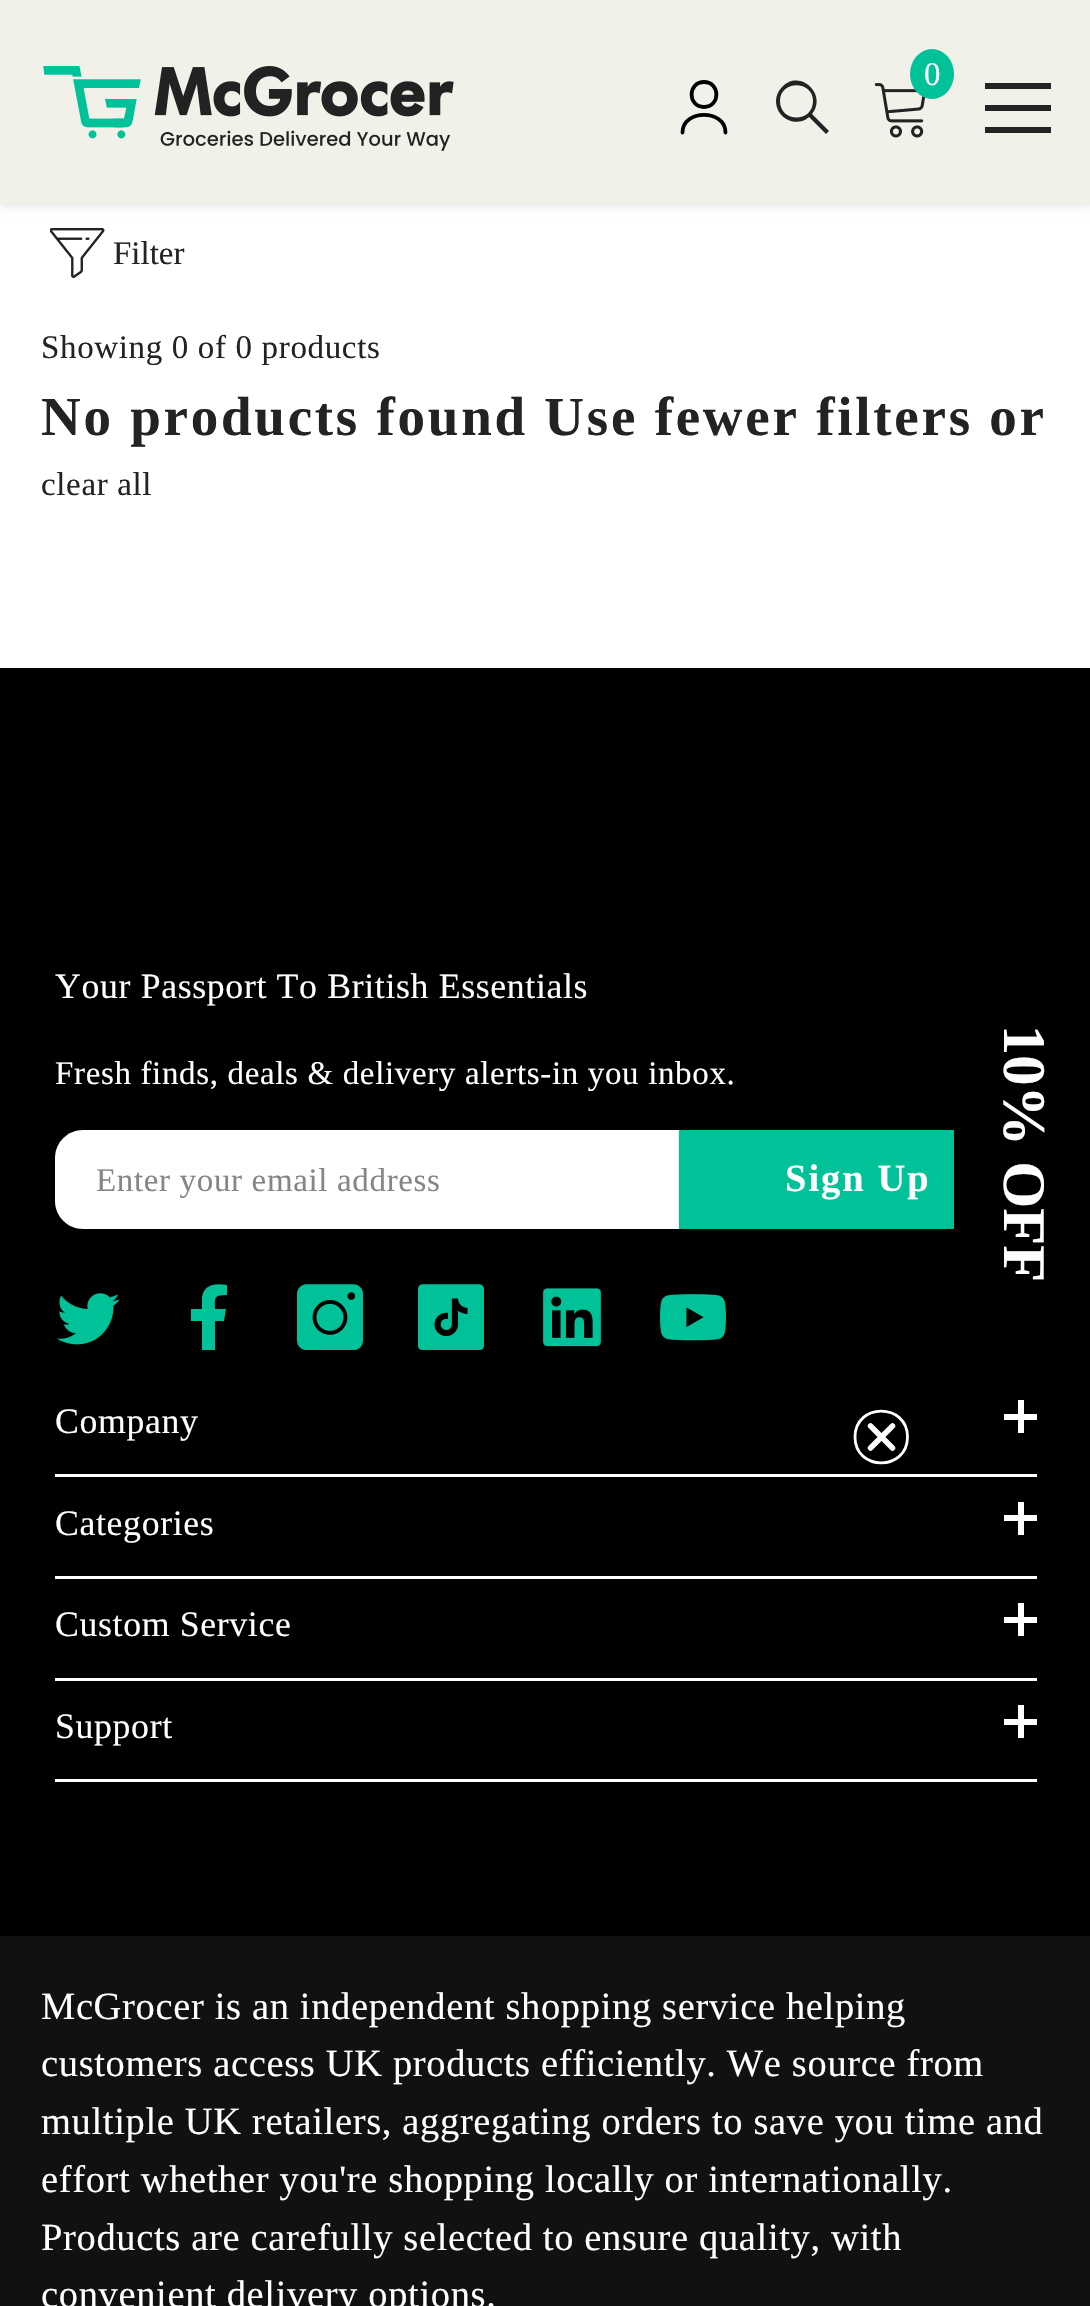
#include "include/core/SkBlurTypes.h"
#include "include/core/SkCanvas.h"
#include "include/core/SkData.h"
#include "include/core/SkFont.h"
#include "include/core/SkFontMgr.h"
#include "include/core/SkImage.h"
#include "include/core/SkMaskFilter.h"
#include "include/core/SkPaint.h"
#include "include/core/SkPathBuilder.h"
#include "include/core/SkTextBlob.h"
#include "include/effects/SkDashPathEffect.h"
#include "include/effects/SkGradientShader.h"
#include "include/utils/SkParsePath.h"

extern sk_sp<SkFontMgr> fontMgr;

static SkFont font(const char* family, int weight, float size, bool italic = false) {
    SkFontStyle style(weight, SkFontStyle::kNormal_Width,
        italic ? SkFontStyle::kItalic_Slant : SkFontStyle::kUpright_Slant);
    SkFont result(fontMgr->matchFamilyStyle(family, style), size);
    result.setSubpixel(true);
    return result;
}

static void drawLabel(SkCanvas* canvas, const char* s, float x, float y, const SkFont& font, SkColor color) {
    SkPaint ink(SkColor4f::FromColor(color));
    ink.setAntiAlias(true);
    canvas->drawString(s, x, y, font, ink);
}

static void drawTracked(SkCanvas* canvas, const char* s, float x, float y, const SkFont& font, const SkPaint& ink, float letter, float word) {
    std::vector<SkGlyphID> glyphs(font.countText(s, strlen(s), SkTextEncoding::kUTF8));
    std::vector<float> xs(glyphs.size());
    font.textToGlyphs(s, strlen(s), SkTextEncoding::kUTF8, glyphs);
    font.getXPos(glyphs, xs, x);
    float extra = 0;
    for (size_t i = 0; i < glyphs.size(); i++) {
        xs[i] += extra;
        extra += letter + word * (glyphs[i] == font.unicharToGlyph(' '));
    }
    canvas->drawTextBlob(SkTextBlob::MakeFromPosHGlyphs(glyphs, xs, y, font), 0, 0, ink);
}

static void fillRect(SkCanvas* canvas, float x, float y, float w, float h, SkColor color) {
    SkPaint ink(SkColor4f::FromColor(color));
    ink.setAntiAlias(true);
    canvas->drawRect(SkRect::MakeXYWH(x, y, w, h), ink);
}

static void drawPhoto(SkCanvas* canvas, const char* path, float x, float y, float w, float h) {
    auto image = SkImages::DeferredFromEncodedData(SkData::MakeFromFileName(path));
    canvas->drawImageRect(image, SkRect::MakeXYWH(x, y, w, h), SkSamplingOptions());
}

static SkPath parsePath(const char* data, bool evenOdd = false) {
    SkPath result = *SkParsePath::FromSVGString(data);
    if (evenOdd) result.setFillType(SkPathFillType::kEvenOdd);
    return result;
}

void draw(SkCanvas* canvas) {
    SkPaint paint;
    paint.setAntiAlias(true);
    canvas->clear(0xFFFFFFFF);
    paint.setColor(0x1A000000);
    paint.setMaskFilter(SkMaskFilter::MakeBlur(kNormal_SkBlurStyle, 4));
    canvas->drawRect(SkRect::MakeXYWH(0, 3, 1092, 203), paint);
    paint.setMaskFilter(nullptr);
    fillRect(canvas, 0, 0, 1090, 204, 0xFFF2F1E9);
    drawPhoto(canvas, "assets/img1.png", 43, 66, 411, 85);
    paint.setStroke(true);
    paint.setStrokeWidth(3.8f);
    paint.setStrokeCap(SkPaint::kRound_Cap);
    paint.setStrokeJoin(SkPaint::kRound_Join);
    paint.setColor(0xFF000000);
    canvas->drawPath(parsePath("M725.5 132.5C725.5 109 682.5 109 682.5 132.5M704 107C720.5 107 720.5 82 704 82C687.5 82 687.5 107 704 107Z"), paint);
    paint.setStroke(false);
    paint.setColor(0xFF232323);
    canvas->drawPath(parsePath("M776 101C776 119 797 128 809 117L826 134L829 131L812 114C828 95 800 68 782 87C778 91 776 96 776 101ZM780 101C780 80 813 80 813 101C813 123 780 123 780 101Z"), paint);
    drawPhoto(canvas, "assets/img2.png", 874, 83, 52, 55);
    paint.setColor(0xFF00C298);
    canvas->drawOval(SkRect::MakeXYWH(910, 49, 44, 50), paint);
    SkFont font1 = font("Liberation Serif", 400, 33);
    drawLabel(canvas, "0", 924, 85, font1, 0xFFFFFFFF);
    fillRect(canvas, 985, 105, 66, 6, 0xFF232323);
    fillRect(canvas, 985, 83, 66, 6, 0xFF232323);
    fillRect(canvas, 985, 127, 66, 6, 0xFF232323);
    drawPhoto(canvas, "assets/img3.png", 50, 228, 55, 50);
    drawLabel(canvas, "Filter", 113, 264, font1, 0xFF232323);
    paint.setColor(0xFF232323);
    drawTracked(canvas, "Showing 0 of 0 products", 41, 358, font1, paint, 0.65f, 0);
    SkFont font2 = font("Liberation Serif", 700, 55);
    drawTracked(canvas, "No products found Use fewer filters or", 41, 435, font2, paint, 2.75f, 0);
    drawTracked(canvas, "clear all", 41, 495, font1, paint, 0.65f, 0);
    fillRect(canvas, 0, 668, 1090, 1268, 0xFF000000);
    SkFont font3 = font("Liberation Serif", 400, 35.75f);
    paint.setColor(0xFFFFFFFF);
    drawTracked(canvas, "Your Passport To British Essentials", 55, 998, font3, paint, 0.65f, 0);
    drawTracked(canvas, "Fresh finds, deals & delivery alerts-in you inbox.", 55, 1084, font1, paint, 0.65f, 0);
    canvas->drawPath(parsePath("M83 1130H679V1229H83C67.5 1229 55 1216.5 55 1201V1158C55 1142.5 67.5 1130 83 1130Z"), paint);
    paint.setColor(0xFF868686);
    drawTracked(canvas, "Enter your email address", 96, 1191, font1, paint, 0.65f, 0);
    fillRect(canvas, 679, 1130, 275, 99, 0xFF00C298);
    SkFont font4 = font("Liberation Serif", 700, 38.5f);
    paint.setColor(0xFFFFFFFF);
    drawTracked(canvas, "Sign Up", 785, 1191, font4, paint, 2, 0);
    drawPhoto(canvas, "assets/img4.png", 57, 1293, 63, 52);
    paint.setColor(0xFF00C298);
    canvas->drawPath(parsePath("M224 1321L226 1309H215C215 1298 213 1295 227 1295V1285C216 1283 204 1284 202 1297V1309H191V1321H202V1350H215V1321Z"), paint);
    drawPhoto(canvas, "assets/img5.png", 297, 1284, 66, 66);
    drawPhoto(canvas, "assets/img6.png", 418, 1284, 66, 66);
    drawPhoto(canvas, "assets/img7.png", 543, 1288, 58, 59);
    drawPhoto(canvas, "assets/img8.png", 660, 1294, 66, 47);
    fillRect(canvas, 55, 1474, 982, 3, 0xFFFFFFFF);
    paint.setColor(0xFFFFFFFF);
    drawTracked(canvas, "Company", 55, 1433, font3, paint, 0.65f, 0);
    fillRect(canvas, 1018, 1400, 6, 33, 0xFFFFFFFF);
    fillRect(canvas, 1004, 1414, 33, 6, 0xFFFFFFFF);
    fillRect(canvas, 55, 1576, 982, 3, 0xFFFFFFFF);
    drawTracked(canvas, "Categories", 55, 1535, font3, paint, 0.65f, 0);
    fillRect(canvas, 1018, 1502, 6, 33, 0xFFFFFFFF);
    fillRect(canvas, 1004, 1515, 33, 6, 0xFFFFFFFF);
    fillRect(canvas, 55, 1678, 982, 3, 0xFFFFFFFF);
    drawTracked(canvas, "Custom Service", 55, 1636, font3, paint, 0.65f, 0);
    fillRect(canvas, 1018, 1603, 6, 33, 0xFFFFFFFF);
    fillRect(canvas, 1004, 1617, 33, 6, 0xFFFFFFFF);
    fillRect(canvas, 55, 1779, 982, 3, 0xFFFFFFFF);
    drawTracked(canvas, "Support", 55, 1738, font3, paint, 0.65f, 0);
    fillRect(canvas, 1018, 1705, 6, 33, 0xFFFFFFFF);
    fillRect(canvas, 1004, 1719, 33, 6, 0xFFFFFFFF);
    fillRect(canvas, 0, 1936, 1090, 370, 0xFF121111);
    SkFont font5 = font("Liberation Serif", 400, 38.5f);
    drawTracked(canvas, "McGrocer is an independent shopping service helping", 41, 2019, font5, paint, 0.65f, 0);
    drawTracked(canvas, "customers access UK products efficiently. We source from", 41, 2076, font5, paint, 0.65f, 0);
    drawTracked(canvas, "multiple UK retailers, aggregating orders to save you time and", 41, 2134, font5, paint, 0.65f, 0);
    drawTracked(canvas, "effort whether you're shopping locally or internationally.", 41, 2192, font5, paint, 0.65f, 0);
    drawTracked(canvas, "Products are carefully selected to ensure quality, with", 41, 2250, font5, paint, 0.65f, 0);
    drawTracked(canvas, "convenient delivery options.", 41, 2307, font5, paint, 0.65f, 0);
    SkFont font6 = font("Liberation Serif", 700, 60.5f);
    canvas->save();
    canvas->rotate(90, 1004, 1025);
    drawLabel(canvas, "10% OFF", 1004, 1025, font6, 0xFFFFFFFF);
    canvas->restore();
    paint.setStroke(true);
    paint.setStrokeWidth(2.8f);
    paint.setStrokeCap(SkPaint::kButt_Cap);
    paint.setStrokeJoin(SkPaint::kMiter_Join);
    canvas->drawPath(parsePath("M907.5 1437C907.5 1471.5 855 1471.5 855 1437C855 1402.5 907.5 1402.5 907.5 1437Z"), paint);
    paint.setStrokeWidth(5.5f);
    paint.setStrokeCap(SkPaint::kRound_Cap);
    paint.setStrokeJoin(SkPaint::kRound_Join);
    canvas->drawPath(parsePath("M892.5 1426L870.5 1448M870.5 1426L892.5 1448Z"), paint);
}
